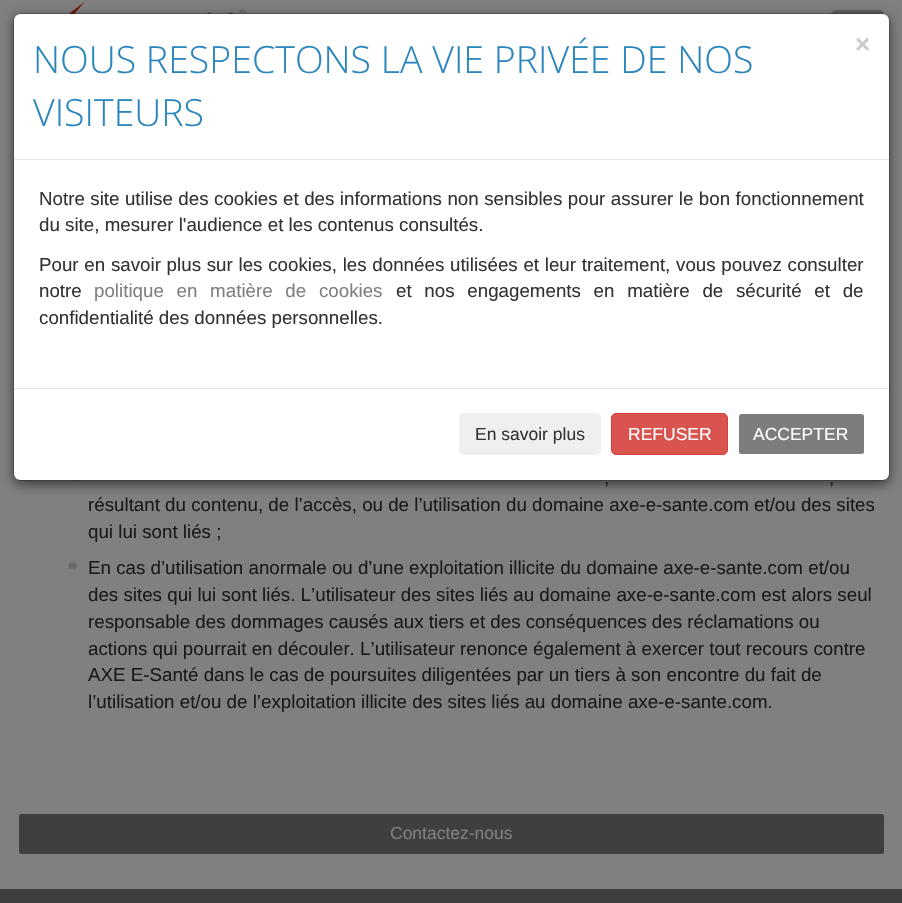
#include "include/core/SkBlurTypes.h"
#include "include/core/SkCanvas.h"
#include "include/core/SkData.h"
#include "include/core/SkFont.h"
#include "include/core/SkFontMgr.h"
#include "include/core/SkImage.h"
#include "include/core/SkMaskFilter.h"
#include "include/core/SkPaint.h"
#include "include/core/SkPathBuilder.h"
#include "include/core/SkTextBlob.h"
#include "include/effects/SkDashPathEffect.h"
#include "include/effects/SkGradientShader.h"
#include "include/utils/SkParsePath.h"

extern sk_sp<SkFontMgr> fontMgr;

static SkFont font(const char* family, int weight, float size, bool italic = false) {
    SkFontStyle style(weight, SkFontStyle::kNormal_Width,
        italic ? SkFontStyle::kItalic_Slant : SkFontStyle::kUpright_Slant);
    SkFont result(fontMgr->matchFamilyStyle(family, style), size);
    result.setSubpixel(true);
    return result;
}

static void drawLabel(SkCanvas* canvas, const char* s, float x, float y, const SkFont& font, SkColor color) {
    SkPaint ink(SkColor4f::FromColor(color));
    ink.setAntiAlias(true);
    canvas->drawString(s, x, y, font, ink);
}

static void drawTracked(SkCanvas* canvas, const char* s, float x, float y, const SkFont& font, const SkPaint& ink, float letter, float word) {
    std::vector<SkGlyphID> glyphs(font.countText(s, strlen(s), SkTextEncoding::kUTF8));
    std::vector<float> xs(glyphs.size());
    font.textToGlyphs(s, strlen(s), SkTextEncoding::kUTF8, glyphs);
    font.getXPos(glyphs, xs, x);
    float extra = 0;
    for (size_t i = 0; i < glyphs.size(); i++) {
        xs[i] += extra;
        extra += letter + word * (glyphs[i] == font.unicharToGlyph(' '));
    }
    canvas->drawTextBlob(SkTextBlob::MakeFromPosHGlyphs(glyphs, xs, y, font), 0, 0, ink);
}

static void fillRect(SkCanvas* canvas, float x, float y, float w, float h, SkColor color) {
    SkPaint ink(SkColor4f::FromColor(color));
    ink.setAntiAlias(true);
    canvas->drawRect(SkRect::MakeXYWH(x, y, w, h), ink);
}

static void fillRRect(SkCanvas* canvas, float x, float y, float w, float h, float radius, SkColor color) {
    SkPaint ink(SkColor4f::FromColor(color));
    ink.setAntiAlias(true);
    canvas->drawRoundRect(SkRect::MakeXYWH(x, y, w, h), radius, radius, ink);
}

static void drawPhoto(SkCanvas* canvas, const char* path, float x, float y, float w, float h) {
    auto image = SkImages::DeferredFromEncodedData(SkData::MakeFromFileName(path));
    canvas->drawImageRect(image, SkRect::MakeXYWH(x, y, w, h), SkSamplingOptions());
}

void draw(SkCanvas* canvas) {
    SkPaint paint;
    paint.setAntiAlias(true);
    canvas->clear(0xFF808080);
    drawPhoto(canvas, "assets/img1.png", 68, 1, 178, 13);
    fillRRect(canvas, 831, 10, 53, 40, 5, 0xFF606060);
    fillRect(canvas, 0, 889, 902, 14, 0xFF3F3F3F);
    drawPhoto(canvas, "assets/img2.png", 72, 480, 4, 1);
    paint.setColor(0x80000000);
    paint.setMaskFilter(SkMaskFilter::MakeBlur(kNormal_SkBlurStyle, 5.5f));
    canvas->drawRoundRect(SkRect::MakeXYWH(13, 16, 877, 469), 8, 8, paint);
    paint.setMaskFilter(nullptr);
    fillRRect(canvas, 14, 14, 875, 466, 6, 0xFFFFFFFF);
    paint.setStroke(true);
    paint.setStrokeWidth(1);
    paint.setColor(0x33000000);
    canvas->drawRoundRect(SkRect::MakeXYWH(13.5f, 13.5f, 876, 467), 7.5f, 7.5f, paint);
    fillRect(canvas, 14, 159, 875, 1, 0xFFE5E5E5);
    SkFont font1 = font("Open Sans", 300, 37.5f);
    drawLabel(canvas, "NOUS RESPECTONS LA VIE PRIVÉE DE NOS", 33, 73, font1, 0xFF2B86BE);
    drawLabel(canvas, "VISITEURS", 33, 126, font1, 0xFF2B86BE);
    SkFont font2 = font("Liberation Sans", 700, 26);
    drawLabel(canvas, "×", 855, 53, font2, 0xFFCCCCCC);
    SkFont font3 = font("Liberation Sans", 400, 18.75f);
    paint.setStroke(false);
    paint.setColor(0xFF333333);
    drawTracked(canvas, "Notre site utilise des cookies et des informations non sensibles pour assurer le bon fonctionnement", 39, 205, font3, paint, 0, 0.25f);
    drawLabel(canvas, "du site, mesurer l'audience et les contenus consultés.", 39, 231, font3, 0xFF333333);
    drawTracked(canvas, "Pour en savoir plus sur les cookies, les données utilisées et leur traitement, vous pouvez consulter", 39, 271, font3, paint, 0, 0.5f);
    drawLabel(canvas, "notre", 39, 297, font3, 0xFF333333);
    paint.setColor(0xFF808080);
    drawTracked(canvas, "politique en matière de cookies", 94, 297, font3, paint, 0, 7.5f);
    paint.setColor(0xFF333333);
    drawTracked(canvas, "et nos engagements en matière de sécurité et de", 396, 297, font3, paint, 0, 7.5f);
    drawLabel(canvas, "confidentialité des données personnelles.", 39, 324, font3, 0xFF333333);
    fillRect(canvas, 14, 388, 875, 1, 0xFFE5E5E5);
    fillRRect(canvas, 459, 413, 142, 42, 5, 0xFFEFEFEF);
    SkFont font4 = font("Liberation Sans", 400, 17.5f);
    drawLabel(canvas, "En savoir plus", 475, 440, font4, 0xFF333333);
    paint.setColor(0xFFD9534F);
    canvas->drawRoundRect(SkRect::MakeXYWH(611.5f, 413.5f, 116, 41), 4.5f, 4.5f, paint);
    paint.setStroke(true);
    paint.setColor(0xFFD43F3A);
    canvas->drawRoundRect(SkRect::MakeXYWH(611.5f, 413.5f, 116, 41), 4.5f, 4.5f, paint);
    drawLabel(canvas, "REFUSER", 628, 440, font4, 0xFFFFFFFF);
    fillRRect(canvas, 739, 414, 125, 40, 2.5f, 0xFF7D7D7D);
    drawLabel(canvas, "ACCEPTER", 753, 440, font4, 0xFFFFFFFF);
    drawLabel(canvas, ",", 604, 484, font3, 0xFF1A1A1A);
    drawLabel(canvas, ",", 829, 484, font3, 0xFF1A1A1A);
    drawLabel(canvas, "résultant du contenu, de l’accès, ou de l’utilisation du domaine axe-e-sante.com et/ou des sites", 88, 511, font3, 0xFF1A1A1A);
    drawLabel(canvas, "qui lui sont liés ;", 88, 538, font3, 0xFF1A1A1A);
    drawPhoto(canvas, "assets/img3.png", 68, 560, 10, 11);
    drawLabel(canvas, "En cas d’utilisation anormale ou d’une exploitation illicite du domaine axe-e-sante.com et/ou", 88, 574, font3, 0xFF1A1A1A);
    drawLabel(canvas, "des sites qui lui sont liés. L’utilisateur des sites liés au domaine axe-e-sante.com est alors seul", 88, 601, font3, 0xFF1A1A1A);
    drawLabel(canvas, "responsable des dommages causés aux tiers et des conséquences des réclamations ou", 88, 628, font3, 0xFF1A1A1A);
    drawLabel(canvas, "actions qui pourrait en découler. L’utilisateur renonce également à exercer tout recours contre", 88, 655, font3, 0xFF1A1A1A);
    drawLabel(canvas, "AXE E-Santé dans le cas de poursuites diligentées par un tiers à son encontre du fait de", 88, 681, font3, 0xFF1A1A1A);
    drawLabel(canvas, "l’utilisation et/ou de l’exploitation illicite des sites liés au domaine axe-e-sante.com.", 88, 708, font3, 0xFF1A1A1A);
    fillRRect(canvas, 19, 814, 865, 40, 2.5f, 0xFF3F3F3F);
    drawLabel(canvas, "Contactez-nous", 390, 839, font4, 0xFF808080);
}
